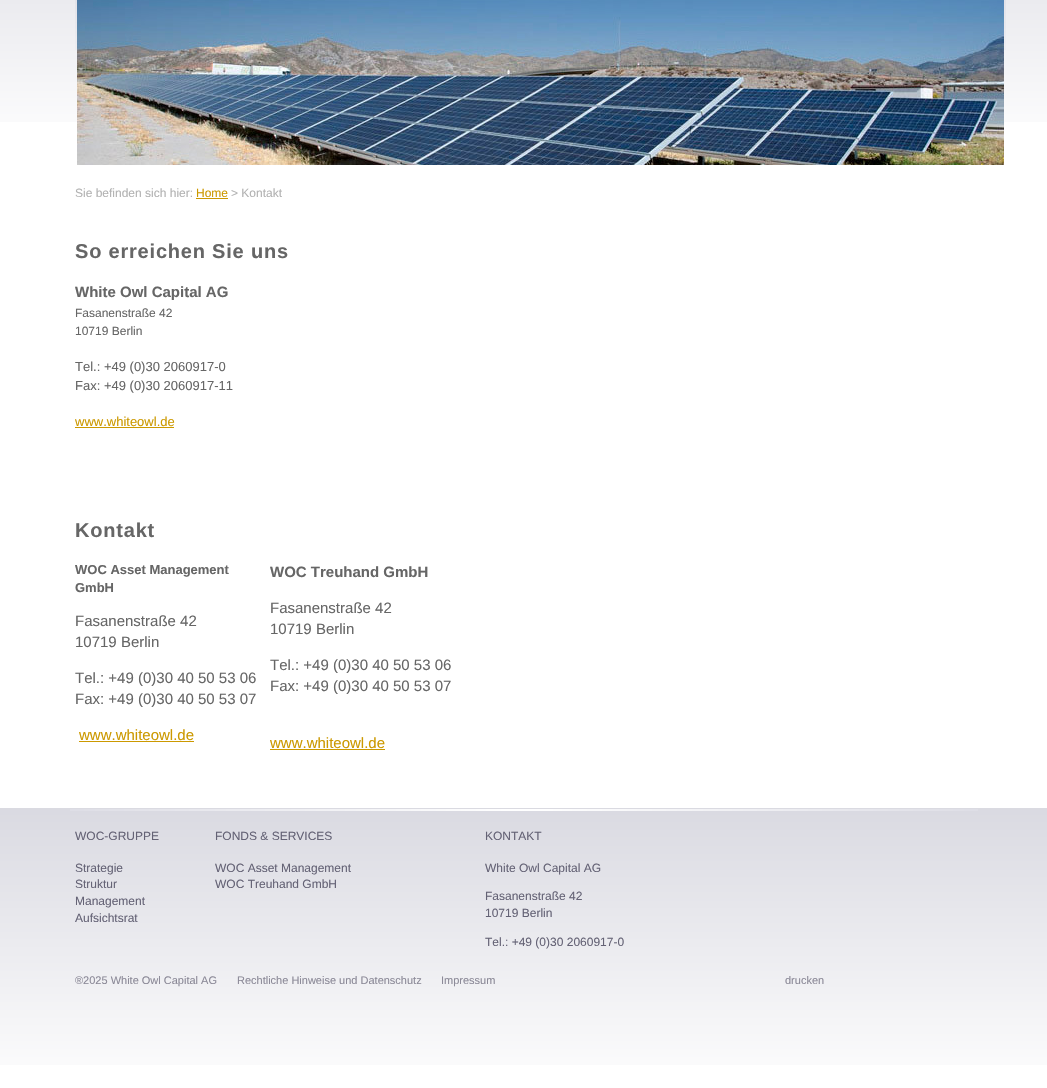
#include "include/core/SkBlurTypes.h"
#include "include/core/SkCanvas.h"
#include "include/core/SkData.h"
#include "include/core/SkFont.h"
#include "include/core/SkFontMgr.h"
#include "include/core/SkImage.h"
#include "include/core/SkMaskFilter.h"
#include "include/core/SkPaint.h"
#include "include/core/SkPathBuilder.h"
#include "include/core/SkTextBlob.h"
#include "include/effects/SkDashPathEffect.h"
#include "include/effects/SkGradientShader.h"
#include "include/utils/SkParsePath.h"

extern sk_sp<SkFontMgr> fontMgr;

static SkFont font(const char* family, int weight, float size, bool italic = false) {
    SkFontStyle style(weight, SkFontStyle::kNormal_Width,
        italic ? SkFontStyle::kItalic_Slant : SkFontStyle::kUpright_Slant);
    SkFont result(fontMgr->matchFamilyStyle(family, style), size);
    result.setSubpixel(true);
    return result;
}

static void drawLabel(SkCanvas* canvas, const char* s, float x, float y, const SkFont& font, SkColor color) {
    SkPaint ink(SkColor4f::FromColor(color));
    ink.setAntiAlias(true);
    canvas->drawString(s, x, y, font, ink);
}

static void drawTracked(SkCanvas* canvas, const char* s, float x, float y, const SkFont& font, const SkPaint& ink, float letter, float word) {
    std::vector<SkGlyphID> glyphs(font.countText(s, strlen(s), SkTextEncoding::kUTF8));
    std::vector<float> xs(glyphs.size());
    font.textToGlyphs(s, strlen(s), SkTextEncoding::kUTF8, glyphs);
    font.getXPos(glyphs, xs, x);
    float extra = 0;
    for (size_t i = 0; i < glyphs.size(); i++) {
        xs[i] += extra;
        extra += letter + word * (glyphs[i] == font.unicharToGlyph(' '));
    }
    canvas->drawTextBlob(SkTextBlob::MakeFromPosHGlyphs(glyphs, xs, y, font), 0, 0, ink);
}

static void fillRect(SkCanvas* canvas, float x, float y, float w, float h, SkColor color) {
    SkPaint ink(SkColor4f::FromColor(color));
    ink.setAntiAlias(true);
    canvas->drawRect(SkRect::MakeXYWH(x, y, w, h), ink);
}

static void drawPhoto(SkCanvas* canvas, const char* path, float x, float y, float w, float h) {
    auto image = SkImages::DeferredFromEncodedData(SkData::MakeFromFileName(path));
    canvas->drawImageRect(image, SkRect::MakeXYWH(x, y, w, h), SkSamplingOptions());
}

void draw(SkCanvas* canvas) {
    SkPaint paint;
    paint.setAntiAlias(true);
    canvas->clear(0xFFFFFFFF);
    drawPhoto(canvas, "assets/img1.png", 0, 0, 1047, 122);
    drawPhoto(canvas, "assets/img2.png", 75, 0, 931, 50);
    drawPhoto(canvas, "assets/img3.png", 77, 0, 927, 165);
    SkFont font1 = font("Liberation Sans", 400, 12);
    drawLabel(canvas, "Sie befinden sich hier:", 75, 197, font1, 0xFFB2B2B2);
    drawLabel(canvas, "Home", 196, 197, font1, 0xFFCC9900);
    fillRect(canvas, 196, 198, 32, 1, 0xFFCC9900);
    drawLabel(canvas, "> Kontakt", 231, 197, font1, 0xFFB2B2B2);
    SkFont font2 = font("Liberation Sans", 700, 20);
    paint.setColor(0xFF666666);
    drawTracked(canvas, "So erreichen Sie uns", 75, 258, font2, paint, 0.8f, 0);
    SkFont font3 = font("Liberation Sans", 700, 15);
    drawLabel(canvas, "White Owl Capital AG", 75, 297, font3, 0xFF666666);
    drawLabel(canvas, "Fasanenstraße 42", 75, 317, font1, 0xFF666666);
    drawLabel(canvas, "10719 Berlin", 75, 335, font1, 0xFF666666);
    SkFont font4 = font("Liberation Sans", 400, 13);
    drawLabel(canvas, "Tel.: +49 (0)30 2060917-0", 75, 371, font4, 0xFF666666);
    drawLabel(canvas, "Fax: +49 (0)30 2060917-11", 75, 390, font4, 0xFF666666);
    drawLabel(canvas, "www.whiteowl.de", 75, 426, font4, 0xFFCC9900);
    fillRect(canvas, 75, 427, 99, 1, 0xFFCC9900);
    drawTracked(canvas, "Kontakt", 75, 537, font2, paint, 0.8f, 0);
    SkFont font5 = font("Liberation Sans", 700, 13);
    drawLabel(canvas, "WOC Asset Management", 75, 574, font5, 0xFF666666);
    drawLabel(canvas, "GmbH", 75, 592, font5, 0xFF666666);
    SkFont font6 = font("Liberation Sans", 400, 15);
    drawLabel(canvas, "Fasanenstraße 42", 75, 626, font6, 0xFF666666);
    drawLabel(canvas, "10719 Berlin", 75, 647, font6, 0xFF666666);
    drawLabel(canvas, "Tel.: +49 (0)30 40 50 53 06", 75, 683, font6, 0xFF666666);
    drawLabel(canvas, "Fax: +49 (0)30 40 50 53 07", 75, 704, font6, 0xFF666666);
    drawLabel(canvas, "www.whiteowl.de", 79, 740, font6, 0xFFCC9900);
    fillRect(canvas, 79, 741, 115, 1, 0xFFCC9900);
    drawLabel(canvas, "WOC Treuhand GmbH", 270, 577, font3, 0xFF666666);
    drawLabel(canvas, "Fasanenstraße 42", 270, 613, font6, 0xFF666666);
    drawLabel(canvas, "10719 Berlin", 270, 634, font6, 0xFF666666);
    drawLabel(canvas, "Tel.: +49 (0)30 40 50 53 06", 270, 670, font6, 0xFF666666);
    drawLabel(canvas, "Fax: +49 (0)30 40 50 53 07", 270, 691, font6, 0xFF666666);
    drawLabel(canvas, "www.whiteowl.de", 270, 748, font6, 0xFFCC9900);
    fillRect(canvas, 270, 749, 115, 1, 0xFFCC9900);
    drawPhoto(canvas, "assets/img4.png", 0, 808, 1047, 257);
    drawPhoto(canvas, "assets/img5.png", 70, 809, 908, 2);
    drawLabel(canvas, "WOC-GRUPPE", 75, 840, font1, 0xFF646275);
    drawLabel(canvas, "Strategie", 75, 872, font1, 0xFF646275);
    drawLabel(canvas, "Struktur", 75, 888, font1, 0xFF646275);
    drawLabel(canvas, "Management", 75, 905, font1, 0xFF646275);
    drawLabel(canvas, "Aufsichtsrat", 75, 922, font1, 0xFF646275);
    drawLabel(canvas, "FONDS & SERVICES", 215, 840, font1, 0xFF646275);
    drawLabel(canvas, "WOC Asset Management", 215, 872, font1, 0xFF646275);
    drawLabel(canvas, "WOC Treuhand GmbH", 215, 888, font1, 0xFF646275);
    drawLabel(canvas, "KONTAKT", 485, 840, font1, 0xFF646275);
    drawLabel(canvas, "White Owl Capital AG", 485, 872, font1, 0xFF646275);
    drawLabel(canvas, "Fasanenstraße 42", 485, 900, font1, 0xFF646275);
    drawLabel(canvas, "10719 Berlin", 485, 917, font1, 0xFF646275);
    drawLabel(canvas, "Tel.: +49 (0)30 2060917-0", 485, 946, font1, 0xFF646275);
    SkFont font7 = font("Liberation Sans", 400, 11);
    drawLabel(canvas, "®2025 White Owl Capital AG", 75, 984, font7, 0xFF8B8997);
    drawLabel(canvas, "Rechtliche Hinweise und Datenschutz", 237, 984, font7, 0xFF8B8997);
    drawLabel(canvas, "Impressum", 441, 984, font7, 0xFF8B8997);
    drawLabel(canvas, "drucken", 785, 984, font7, 0xFF8B8997);
}
